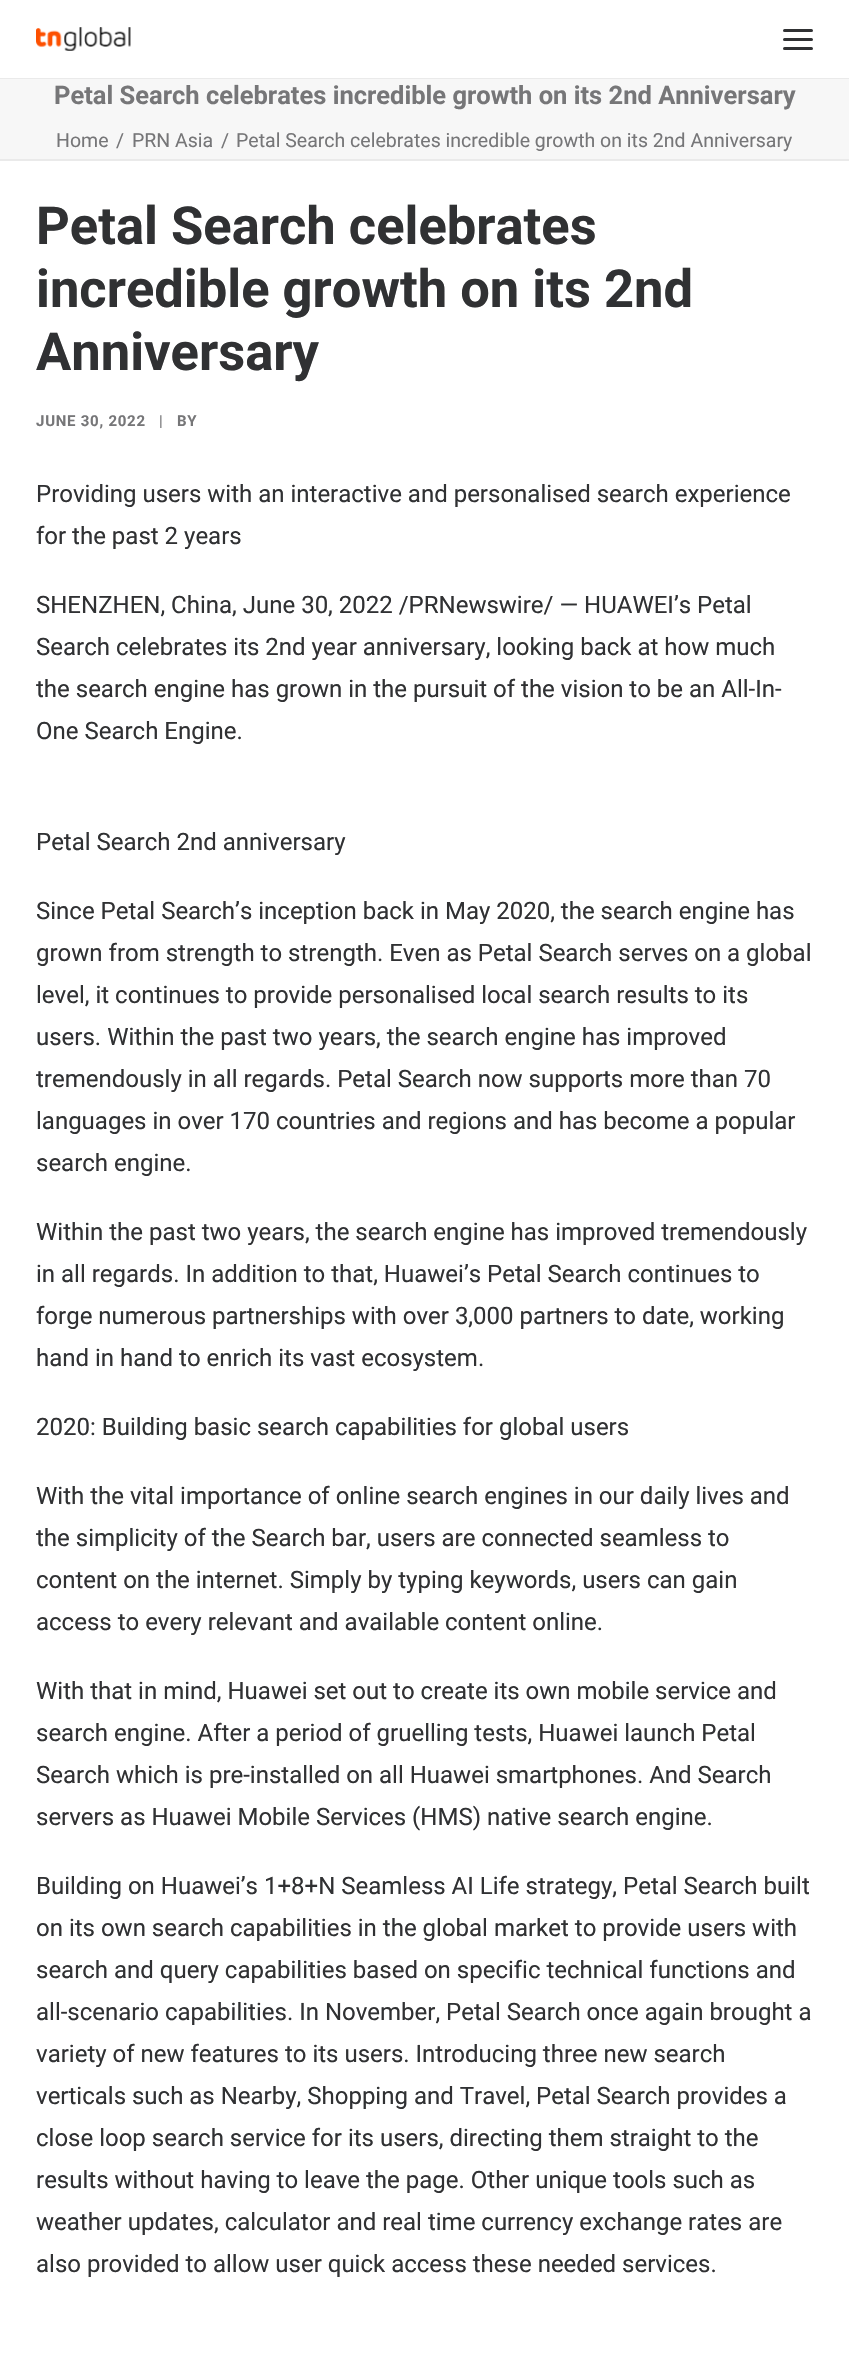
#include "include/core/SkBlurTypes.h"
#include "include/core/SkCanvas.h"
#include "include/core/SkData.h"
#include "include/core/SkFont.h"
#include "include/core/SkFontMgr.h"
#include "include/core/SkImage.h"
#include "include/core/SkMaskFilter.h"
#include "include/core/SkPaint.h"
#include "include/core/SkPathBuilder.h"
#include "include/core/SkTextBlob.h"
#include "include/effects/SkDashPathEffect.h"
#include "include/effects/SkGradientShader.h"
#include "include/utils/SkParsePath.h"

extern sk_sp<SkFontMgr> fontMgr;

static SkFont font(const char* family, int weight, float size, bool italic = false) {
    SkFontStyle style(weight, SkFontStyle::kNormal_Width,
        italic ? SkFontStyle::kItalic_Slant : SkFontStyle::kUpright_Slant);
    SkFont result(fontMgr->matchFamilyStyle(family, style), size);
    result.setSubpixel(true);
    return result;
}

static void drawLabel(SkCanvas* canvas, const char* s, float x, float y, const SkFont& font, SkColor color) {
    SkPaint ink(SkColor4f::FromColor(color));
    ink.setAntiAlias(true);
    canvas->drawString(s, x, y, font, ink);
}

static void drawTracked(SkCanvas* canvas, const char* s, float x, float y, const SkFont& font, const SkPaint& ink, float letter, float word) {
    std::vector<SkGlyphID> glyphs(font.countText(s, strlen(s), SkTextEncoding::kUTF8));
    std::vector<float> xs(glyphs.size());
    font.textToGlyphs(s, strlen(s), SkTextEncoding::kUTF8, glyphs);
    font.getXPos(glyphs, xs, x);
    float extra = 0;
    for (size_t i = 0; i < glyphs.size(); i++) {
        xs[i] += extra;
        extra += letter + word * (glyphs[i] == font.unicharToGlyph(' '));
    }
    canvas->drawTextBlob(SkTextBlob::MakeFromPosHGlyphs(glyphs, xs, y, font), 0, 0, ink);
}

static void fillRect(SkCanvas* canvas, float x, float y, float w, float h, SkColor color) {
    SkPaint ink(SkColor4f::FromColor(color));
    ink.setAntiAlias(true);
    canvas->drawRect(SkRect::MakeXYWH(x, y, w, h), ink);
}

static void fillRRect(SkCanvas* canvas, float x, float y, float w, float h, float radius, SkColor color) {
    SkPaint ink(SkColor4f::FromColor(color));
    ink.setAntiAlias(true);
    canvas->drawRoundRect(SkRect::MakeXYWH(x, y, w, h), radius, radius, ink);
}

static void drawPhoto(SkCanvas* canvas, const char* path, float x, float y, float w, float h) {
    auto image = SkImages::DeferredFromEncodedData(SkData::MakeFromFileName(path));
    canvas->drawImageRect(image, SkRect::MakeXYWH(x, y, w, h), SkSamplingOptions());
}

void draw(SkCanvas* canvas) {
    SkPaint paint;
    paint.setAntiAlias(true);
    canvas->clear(0xFFF7F7F7);
    fillRect(canvas, 0, 0, 849, 78, 0xFFFFFFFF);
    drawPhoto(canvas, "assets/img1.png", 36, 27, 95, 24);
    fillRRect(canvas, 783, 38, 30, 3, 1.5f, 0xFF303133);
    fillRRect(canvas, 783, 29, 30, 3, 1.5f, 0xFF303133);
    fillRRect(canvas, 783, 47, 30, 3, 1.5f, 0xFF303133);
    fillRect(canvas, 0, 78, 849, 1, 0xFFEAEAEA);
    fillRect(canvas, 0, 159, 849, 2, 0xFFEAEAEA);
    SkFont font1 = font("Roboto", 700, 25.5f);
    drawLabel(canvas, "Petal Search celebrates incredible growth on its 2nd Anniversary", 54, 104, font1, 0xFF767678);
    SkFont font2 = font("Roboto", 400, 19.5f);
    drawLabel(canvas, "Home", 56, 147, font2, 0xFF767678);
    drawLabel(canvas, "/", 116, 147, font2, 0xFF767678);
    drawLabel(canvas, "PRN Asia", 132, 147, font2, 0xFF767678);
    drawLabel(canvas, "/", 221, 147, font2, 0xFF767678);
    drawLabel(canvas, "Petal Search celebrates incredible growth on its 2nd Anniversary", 236, 147, font2, 0xFF767678);
    fillRect(canvas, 0, 161, 849, 2205, 0xFFFFFFFF);
    SkFont font3 = font("Roboto", 700, 52.5f);
    drawLabel(canvas, "Petal Search celebrates", 36, 244, font3, 0xFF303133);
    drawLabel(canvas, "incredible growth on its 2nd", 36, 307, font3, 0xFF303133);
    drawLabel(canvas, "Anniversary", 36, 370, font3, 0xFF303133);
    SkFont font4 = font("Roboto", 700, 15);
    paint.setColor(0xFF767678);
    drawTracked(canvas, "JUNE 30, 2022", 36, 426, font4, paint, 0.75f, 0);
    SkFont font5 = font("Roboto", 400, 15);
    drawTracked(canvas, "|", 159, 426, font5, paint, 0.75f, 0);
    drawTracked(canvas, "BY", 177, 426, font4, paint, 0.75f, 0);
    SkFont font6 = font("Roboto", 400, 24);
    drawLabel(canvas, "Providing users with an interactive and personalised search experience", 36, 502, font6, 0xFF303133);
    drawLabel(canvas, "for the past 2 years", 36, 544, font6, 0xFF303133);
    drawLabel(canvas, "SHENZHEN, China, June 30, 2022 /PRNewswire/ — HUAWEI’s Petal", 36, 613, font6, 0xFF303133);
    drawLabel(canvas, "Search celebrates its 2nd year anniversary, looking back at how much", 36, 655, font6, 0xFF303133);
    drawLabel(canvas, "the search engine has grown in the pursuit of the vision to be an All-In-", 36, 697, font6, 0xFF303133);
    drawLabel(canvas, "One Search Engine.", 36, 739, font6, 0xFF303133);
    drawLabel(canvas, "Petal Search 2nd anniversary", 36, 850, font6, 0xFF303133);
    drawLabel(canvas, "Since Petal Search’s inception back in May 2020, the search engine has", 36, 919, font6, 0xFF303133);
    drawLabel(canvas, "grown from strength to strength. Even as Petal Search serves on a global", 36, 961, font6, 0xFF303133);
    drawLabel(canvas, "level, it continues to provide personalised local search results to its", 36, 1003, font6, 0xFF303133);
    drawLabel(canvas, "users. Within the past two years, the search engine has improved", 36, 1045, font6, 0xFF303133);
    drawLabel(canvas, "tremendously in all regards. Petal Search now supports more than 70", 36, 1087, font6, 0xFF303133);
    drawLabel(canvas, "languages in over 170 countries and regions and has become a popular", 36, 1129, font6, 0xFF303133);
    drawLabel(canvas, "search engine.", 36, 1171, font6, 0xFF303133);
    drawLabel(canvas, "Within the past two years, the search engine has improved tremendously", 36, 1240, font6, 0xFF303133);
    drawLabel(canvas, "in all regards. In addition to that, Huawei’s Petal Search continues to", 36, 1282, font6, 0xFF303133);
    drawLabel(canvas, "forge numerous partnerships with over 3,000 partners to date, working", 36, 1324, font6, 0xFF303133);
    drawLabel(canvas, "hand in hand to enrich its vast ecosystem.", 36, 1366, font6, 0xFF303133);
    drawLabel(canvas, "2020: Building basic search capabilities for global users", 36, 1435, font6, 0xFF303133);
    drawLabel(canvas, "With the vital importance of online search engines in our daily lives and", 36, 1504, font6, 0xFF303133);
    drawLabel(canvas, "the simplicity of the Search bar, users are connected seamless to", 36, 1546, font6, 0xFF303133);
    drawLabel(canvas, "content on the internet. Simply by typing keywords, users can gain", 36, 1588, font6, 0xFF303133);
    drawLabel(canvas, "access to every relevant and available content online.", 36, 1630, font6, 0xFF303133);
    drawLabel(canvas, "With that in mind, Huawei set out to create its own mobile service and", 36, 1699, font6, 0xFF303133);
    drawLabel(canvas, "search engine. After a period of gruelling tests, Huawei launch Petal", 36, 1741, font6, 0xFF303133);
    drawLabel(canvas, "Search which is pre-installed on all Huawei smartphones. And Search", 36, 1783, font6, 0xFF303133);
    drawLabel(canvas, "servers as Huawei Mobile Services (HMS) native search engine.", 36, 1825, font6, 0xFF303133);
    drawLabel(canvas, "Building on Huawei’s 1+8+N Seamless AI Life strategy, Petal Search built", 36, 1894, font6, 0xFF303133);
    drawLabel(canvas, "on its own search capabilities in the global market to provide users with", 36, 1936, font6, 0xFF303133);
    drawLabel(canvas, "search and query capabilities based on specific technical functions and", 36, 1978, font6, 0xFF303133);
    drawLabel(canvas, "all-scenario capabilities. In November, Petal Search once again brought a", 36, 2020, font6, 0xFF303133);
    drawLabel(canvas, "variety of new features to its users. Introducing three new search", 36, 2062, font6, 0xFF303133);
    drawLabel(canvas, "verticals such as Nearby, Shopping and Travel, Petal Search provides a", 36, 2104, font6, 0xFF303133);
    drawLabel(canvas, "close loop search service for its users, directing them straight to the", 36, 2146, font6, 0xFF303133);
    drawLabel(canvas, "results without having to leave the page. Other unique tools such as", 36, 2188, font6, 0xFF303133);
    drawLabel(canvas, "weather updates, calculator and real time currency exchange rates are", 36, 2230, font6, 0xFF303133);
    drawLabel(canvas, "also provided to allow user quick access these needed services.", 36, 2272, font6, 0xFF303133);
}
